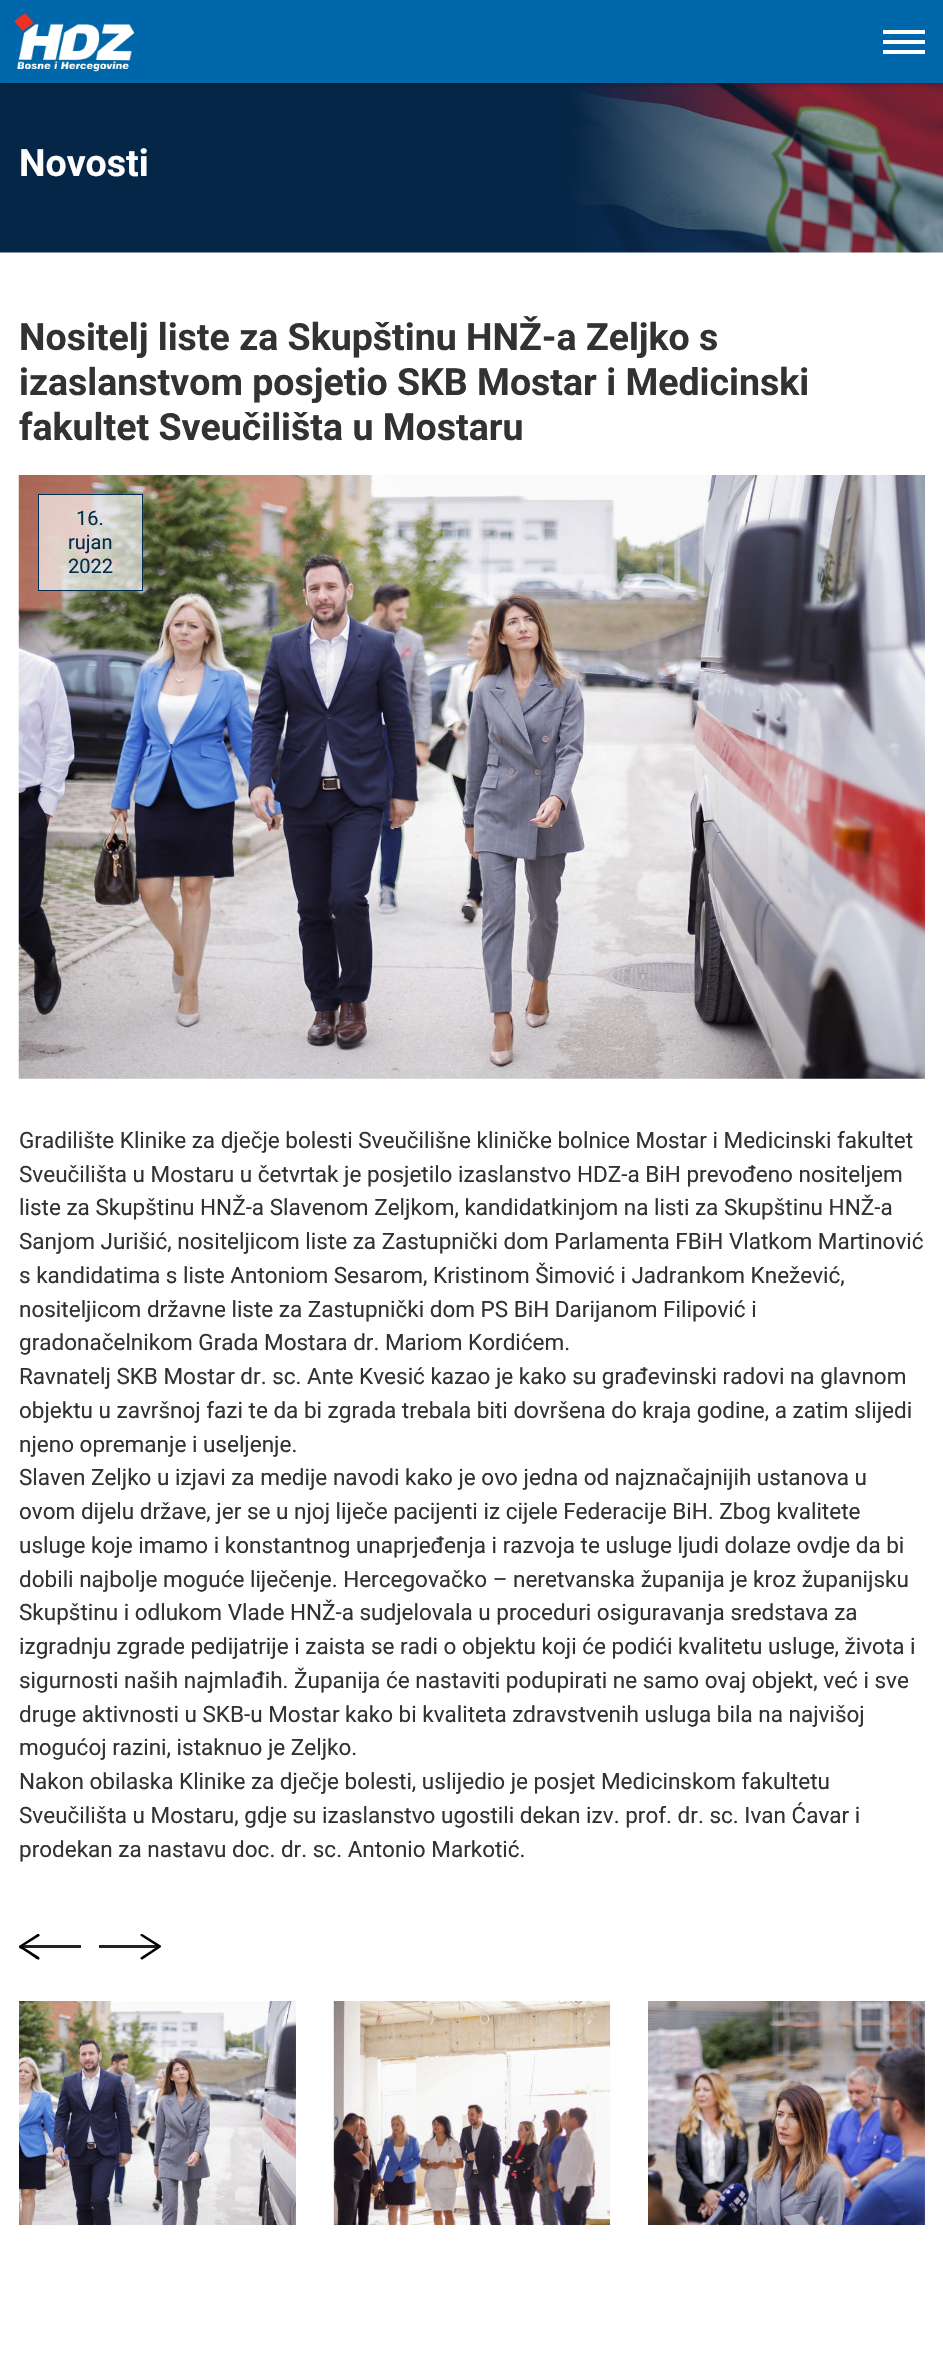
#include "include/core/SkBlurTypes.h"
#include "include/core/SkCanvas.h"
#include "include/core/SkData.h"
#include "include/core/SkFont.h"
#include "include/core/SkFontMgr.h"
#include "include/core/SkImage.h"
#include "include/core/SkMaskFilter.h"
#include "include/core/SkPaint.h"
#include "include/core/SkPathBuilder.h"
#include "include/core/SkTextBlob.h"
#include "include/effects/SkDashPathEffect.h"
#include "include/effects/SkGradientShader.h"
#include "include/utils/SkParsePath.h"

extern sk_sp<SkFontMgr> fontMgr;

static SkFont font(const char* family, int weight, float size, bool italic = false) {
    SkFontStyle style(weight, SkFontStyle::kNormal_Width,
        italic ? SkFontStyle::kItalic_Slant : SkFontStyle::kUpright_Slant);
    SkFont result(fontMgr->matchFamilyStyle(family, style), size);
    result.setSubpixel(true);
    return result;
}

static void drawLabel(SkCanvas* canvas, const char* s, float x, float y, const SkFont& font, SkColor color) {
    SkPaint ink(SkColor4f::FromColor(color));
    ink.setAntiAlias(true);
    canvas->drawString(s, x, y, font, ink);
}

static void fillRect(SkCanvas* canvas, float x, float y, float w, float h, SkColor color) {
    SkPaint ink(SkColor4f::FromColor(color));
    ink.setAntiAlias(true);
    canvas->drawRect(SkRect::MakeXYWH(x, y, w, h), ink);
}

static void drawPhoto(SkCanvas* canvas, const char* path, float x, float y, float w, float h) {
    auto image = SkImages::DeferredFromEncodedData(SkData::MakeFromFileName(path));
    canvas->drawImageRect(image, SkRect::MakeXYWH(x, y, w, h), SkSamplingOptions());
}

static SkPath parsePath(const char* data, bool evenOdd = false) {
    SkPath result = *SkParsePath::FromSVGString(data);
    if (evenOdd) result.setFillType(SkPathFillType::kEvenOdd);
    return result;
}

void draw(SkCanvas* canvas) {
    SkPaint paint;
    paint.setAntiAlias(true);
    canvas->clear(0xFFFFFFFF);
    drawPhoto(canvas, "assets/img2.png", 0, 83, 943, 170);
    paint.setColor(0x66000000);
    paint.setMaskFilter(SkMaskFilter::MakeBlur(kNormal_SkBlurStyle, 3));
    canvas->drawRect(SkRect::MakeXYWH(0, 0, 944, 83), paint);
    paint.setMaskFilter(nullptr);
    fillRect(canvas, 0, 0, 943, 83, 0xFF0068AA);
    drawPhoto(canvas, "assets/img1.png", 14, 13, 121, 59);
    fillRect(canvas, 883, 40, 42, 4, 0xFFFFFFFF);
    fillRect(canvas, 883, 30, 42, 4, 0xFFFFFFFF);
    fillRect(canvas, 883, 50, 42, 4, 0xFFFFFFFF);
    SkFont font1 = font("Roboto", 700, 37.5f);
    drawLabel(canvas, "Novosti", 19, 176, font1, 0xFFFFFFFF);
    drawLabel(canvas, "Nositelj liste za Skupštinu HNŽ-a Zeljko s", 19, 350, font1, 0xFF323133);
    drawLabel(canvas, "izaslanstvom posjetio SKB Mostar i Medicinski", 19, 395, font1, 0xFF323133);
    drawLabel(canvas, "fakultet Sveučilišta u Mostaru", 19, 440, font1, 0xFF323133);
    drawPhoto(canvas, "assets/img3.png", 18, 475, 907, 604);
    paint.setColor(0xA3FFFFFF);
    canvas->drawRect(SkRect::MakeXYWH(38.5f, 494.5f, 104, 96), paint);
    paint.setStroke(true);
    paint.setStrokeWidth(1);
    paint.setColor(0xFF002C4F);
    canvas->drawRect(SkRect::MakeXYWH(38.5f, 494.5f, 104, 96), paint);
    SkFont font2 = font("Roboto", 400, 20);
    drawLabel(canvas, "16.", 76, 525, font2, 0xFF002C4F);
    drawLabel(canvas, "rujan", 68, 549, font2, 0xFF002C4F);
    drawLabel(canvas, "2022", 68, 573, font2, 0xFF002C4F);
    SkFont font3 = font("Roboto", 400, 22.5f);
    drawLabel(canvas, "Gradilište Klinike za dječje bolesti Sveučilišne kliničke bolnice Mostar i Medicinski fakultet", 19, 1148, font3, 0xFF323133);
    drawLabel(canvas, "Sveučilišta u Mostaru u četvrtak je posjetilo izaslanstvo HDZ-a BiH prevođeno nositeljem", 19, 1182, font3, 0xFF323133);
    drawLabel(canvas, "liste za Skupštinu HNŽ-a Slavenom Zeljkom, kandidatkinjom na listi za Skupštinu HNŽ-a", 19, 1215, font3, 0xFF323133);
    drawLabel(canvas, "Sanjom Jurišić, nositeljicom liste za Zastupnički dom Parlamenta FBiH Vlatkom Martinović", 19, 1249, font3, 0xFF323133);
    drawLabel(canvas, "s kandidatima s liste Antoniom Sesarom, Kristinom Šimović i Jadrankom Knežević,", 19, 1283, font3, 0xFF323133);
    drawLabel(canvas, "nositeljicom državne liste za Zastupnički dom PS BiH Darijanom Filipović i", 19, 1317, font3, 0xFF323133);
    drawLabel(canvas, "gradonačelnikom Grada Mostara dr. Mariom Kordićem.", 19, 1350, font3, 0xFF323133);
    drawLabel(canvas, "Ravnatelj SKB Mostar dr. sc. Ante Kvesić kazao je kako su građevinski radovi na glavnom", 19, 1384, font3, 0xFF323133);
    drawLabel(canvas, "objektu u završnoj fazi te da bi zgrada trebala biti dovršena do kraja godine, a zatim slijedi", 19, 1418, font3, 0xFF323133);
    drawLabel(canvas, "njeno opremanje i useljenje.", 19, 1452, font3, 0xFF323133);
    drawLabel(canvas, "Slaven Zeljko u izjavi za medije navodi kako je ovo jedna od najznačajnijih ustanova u", 19, 1485, font3, 0xFF323133);
    drawLabel(canvas, "ovom dijelu države, jer se u njoj liječe pacijenti iz cijele Federacije BiH. Zbog kvalitete", 19, 1519, font3, 0xFF323133);
    drawLabel(canvas, "usluge koje imamo i konstantnog unaprjeđenja i razvoja te usluge ljudi dolaze ovdje da bi", 19, 1553, font3, 0xFF323133);
    drawLabel(canvas, "dobili najbolje moguće liječenje. Hercegovačko – neretvanska županija je kroz županijsku", 19, 1587, font3, 0xFF323133);
    drawLabel(canvas, "Skupštinu i odlukom Vlade HNŽ-a sudjelovala u proceduri osiguravanja sredstava za", 19, 1620, font3, 0xFF323133);
    drawLabel(canvas, "izgradnju zgrade pedijatrije i zaista se radi o objektu koji će podići kvalitetu usluge, života i", 19, 1654, font3, 0xFF323133);
    drawLabel(canvas, "sigurnosti naših najmlađih. Županija će nastaviti podupirati ne samo ovaj objekt, već i sve", 19, 1688, font3, 0xFF323133);
    drawLabel(canvas, "druge aktivnosti u SKB-u Mostar kako bi kvaliteta zdravstvenih usluga bila na najvišoj", 19, 1722, font3, 0xFF323133);
    drawLabel(canvas, "mogućoj razini, istaknuo je Zeljko.", 19, 1755, font3, 0xFF323133);
    drawLabel(canvas, "Nakon obilaska Klinike za dječje bolesti, uslijedio je posjet Medicinskom fakultetu", 19, 1789, font3, 0xFF323133);
    drawLabel(canvas, "Sveučilišta u Mostaru, gdje su izaslanstvo ugostili dekan izv. prof. dr. sc. Ivan Ćavar i", 19, 1823, font3, 0xFF323133);
    drawLabel(canvas, "prodekan za nastavu doc. dr. sc. Antonio Markotić.", 19, 1857, font3, 0xFF323133);
    fillRect(canvas, 22, 1945, 59, 3, 0xFF222222);
    canvas->save();
    canvas->clipRect(SkRect::MakeXYWH(19, 1934, 62, 26));
    paint.setStroke(false);
    paint.setColor(0xFF000000);
    canvas->drawPath(parsePath("M39.5 1959C39.5 1958.5 39.5 1957.5 39 1957L22.5 1946.5L39.5 1936C40 1934.5 38.5 1933 37.5 1934L19 1946C18 1948 22 1949.5 22.5 1949.5L34.5 1957.5C34.5 1957.5 38.5 1961 39.5 1959Z"), paint);
    canvas->restore();
    fillRect(canvas, 99, 1945, 59, 3, 0xFF222222);
    canvas->drawPath(parsePath("M140.5 1934.5C140.5 1935 140.5 1936 141 1936L157.5 1946.5L140.5 1957.5C140 1958.5 141.5 1960 142.5 1959.5L161 1947C162 1945.5 158 1944 157.5 1943.5L145.5 1936C145.5 1936 141.5 1932.5 140.5 1934.5Z"), paint);
    drawPhoto(canvas, "assets/img4.png", 19, 2001, 277, 224);
    drawPhoto(canvas, "assets/img5.png", 333, 2001, 278, 224);
    drawPhoto(canvas, "assets/img6.png", 648, 2001, 277, 224);
}
